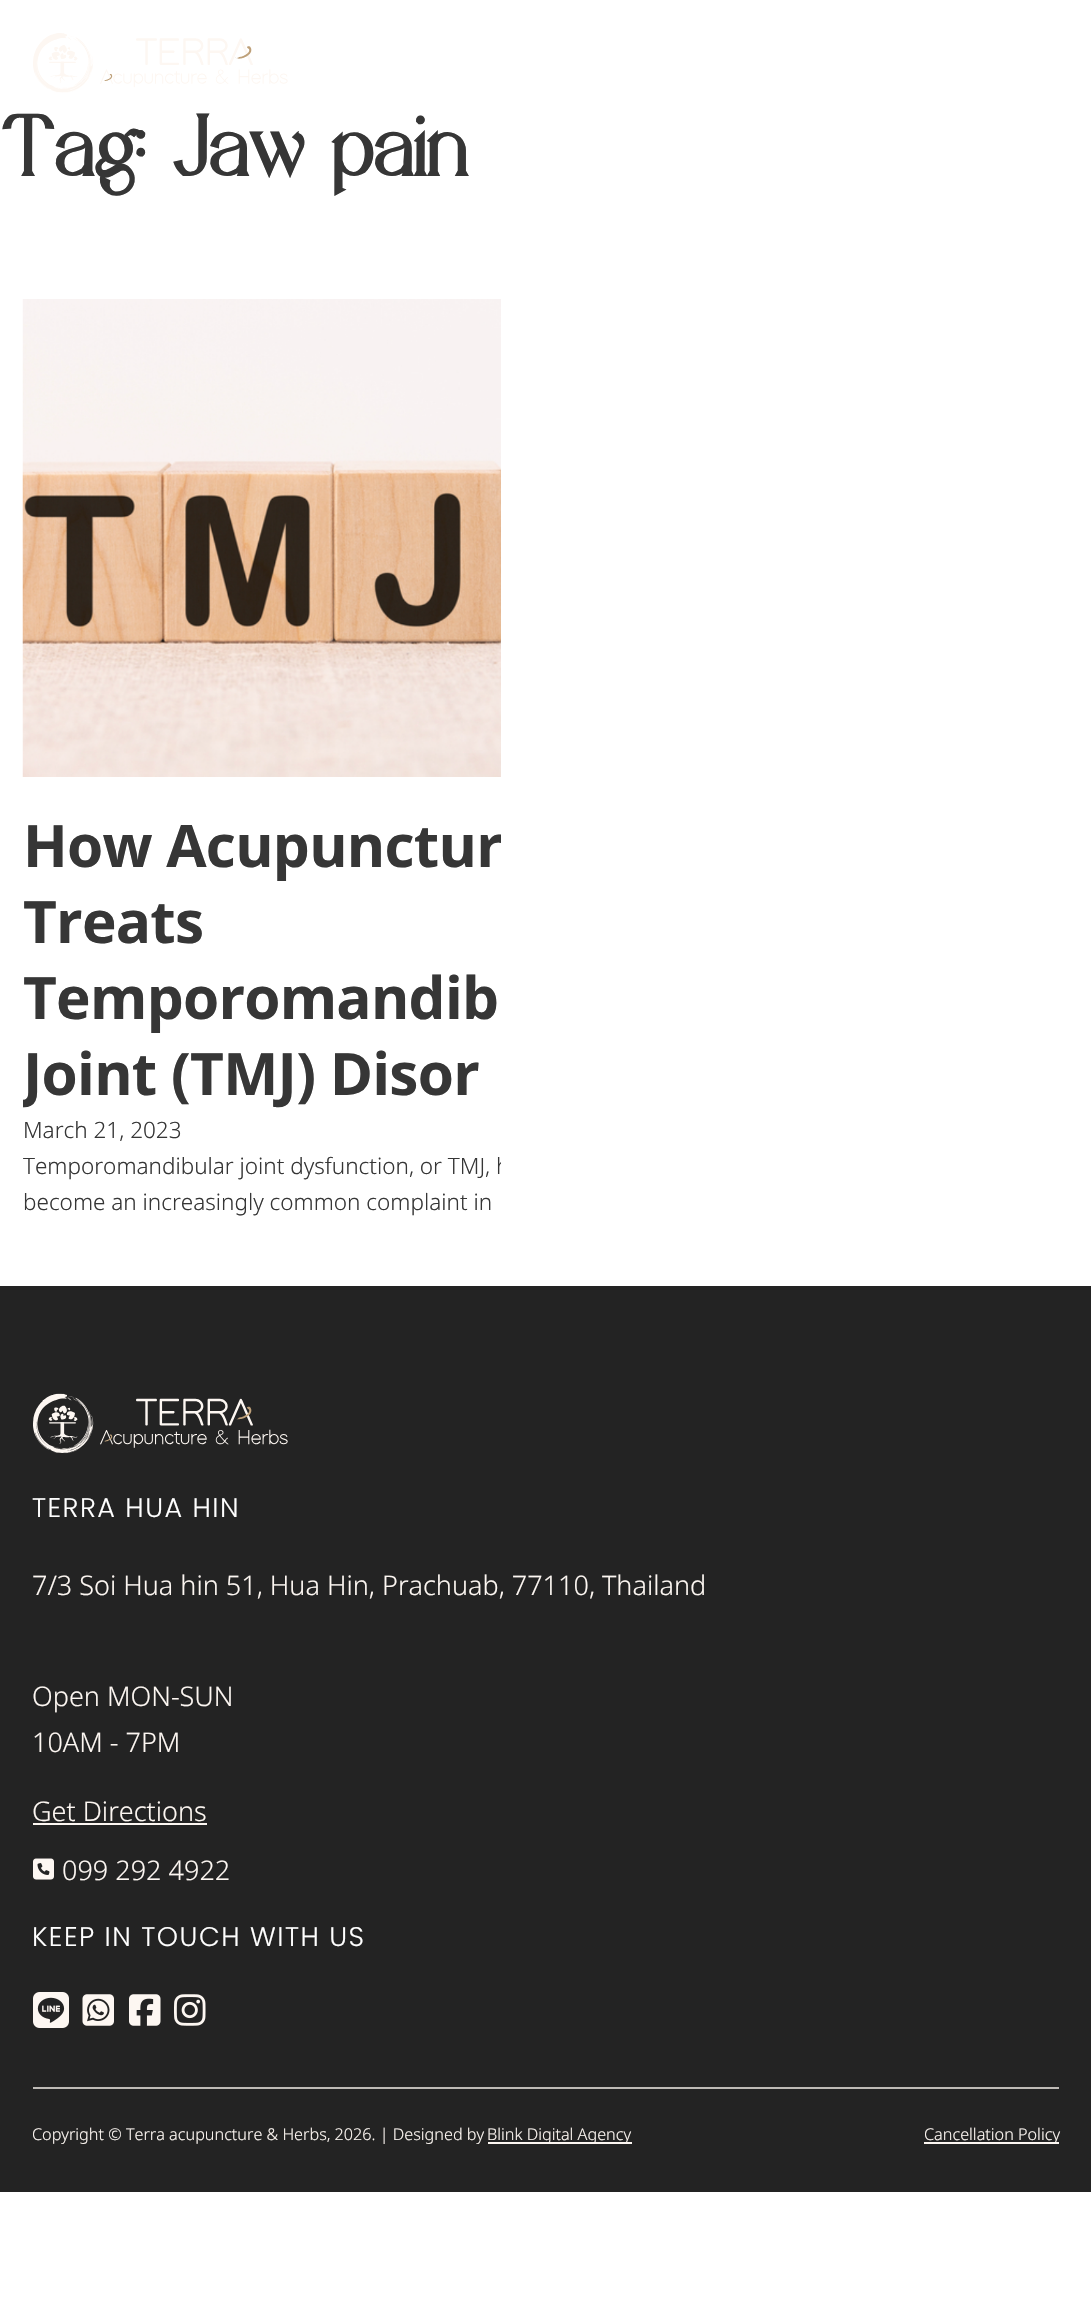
#include "include/core/SkBlurTypes.h"
#include "include/core/SkCanvas.h"
#include "include/core/SkData.h"
#include "include/core/SkFont.h"
#include "include/core/SkFontMgr.h"
#include "include/core/SkImage.h"
#include "include/core/SkMaskFilter.h"
#include "include/core/SkPaint.h"
#include "include/core/SkPathBuilder.h"
#include "include/core/SkTextBlob.h"
#include "include/effects/SkDashPathEffect.h"
#include "include/effects/SkGradientShader.h"
#include "include/utils/SkParsePath.h"

extern sk_sp<SkFontMgr> fontMgr;

static SkFont font(const char* family, int weight, float size, bool italic = false) {
    SkFontStyle style(weight, SkFontStyle::kNormal_Width,
        italic ? SkFontStyle::kItalic_Slant : SkFontStyle::kUpright_Slant);
    SkFont result(fontMgr->matchFamilyStyle(family, style), size);
    result.setSubpixel(true);
    return result;
}

static void drawLabel(SkCanvas* canvas, const char* s, float x, float y, const SkFont& font, SkColor color) {
    SkPaint ink(SkColor4f::FromColor(color));
    ink.setAntiAlias(true);
    canvas->drawString(s, x, y, font, ink);
}

static void drawTracked(SkCanvas* canvas, const char* s, float x, float y, const SkFont& font, const SkPaint& ink, float letter, float word) {
    std::vector<SkGlyphID> glyphs(font.countText(s, strlen(s), SkTextEncoding::kUTF8));
    std::vector<float> xs(glyphs.size());
    font.textToGlyphs(s, strlen(s), SkTextEncoding::kUTF8, glyphs);
    font.getXPos(glyphs, xs, x);
    float extra = 0;
    for (size_t i = 0; i < glyphs.size(); i++) {
        xs[i] += extra;
        extra += letter + word * (glyphs[i] == font.unicharToGlyph(' '));
    }
    canvas->drawTextBlob(SkTextBlob::MakeFromPosHGlyphs(glyphs, xs, y, font), 0, 0, ink);
}

static void fillRect(SkCanvas* canvas, float x, float y, float w, float h, SkColor color) {
    SkPaint ink(SkColor4f::FromColor(color));
    ink.setAntiAlias(true);
    canvas->drawRect(SkRect::MakeXYWH(x, y, w, h), ink);
}

static void drawPhoto(SkCanvas* canvas, const char* path, float x, float y, float w, float h) {
    auto image = SkImages::DeferredFromEncodedData(SkData::MakeFromFileName(path));
    canvas->drawImageRect(image, SkRect::MakeXYWH(x, y, w, h), SkSamplingOptions());
}

void draw(SkCanvas* canvas) {
    SkPaint paint;
    paint.setAntiAlias(true);
    canvas->clear(0xFFFFFFFF);
    drawPhoto(canvas, "assets/img1.png", 33, 33, 255, 60);
    SkFont font1 = font("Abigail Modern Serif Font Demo", 700, 107);
    paint.setColor(0xFF363636);
    drawTracked(canvas, "Tag:", 0, 176, font1, paint, -0.75f, 0);
    drawTracked(canvas, "Jaw", 171, 176, font1, paint, -0.75f, 0);
    drawTracked(canvas, "pain", 330, 176, font1, paint, -0.75f, 0);
    drawPhoto(canvas, "assets/img2.png", 22, 299, 479, 478);
    canvas->save();
    canvas->clipRect(SkRect::MakeXYWH(23, 299, 478, 987));
    SkFont font2 = font("Noto Sans", 700, 58.5f);
    drawTracked(canvas, "How Acupunctur", 23, 867, font2, paint, -0.75f, 0);
    canvas->restore();
    drawTracked(canvas, "Treats", 23, 943, font2, paint, -0.75f, 0);
    drawTracked(canvas, "Temporomandib", 23, 1019, font2, paint, -0.75f, 0);
    canvas->save();
    canvas->clipRect(SkRect::MakeXYWH(23, 299, 478, 987));
    drawTracked(canvas, "Joint (TMJ) Disor", 23, 1095, font2, paint, -0.75f, 0);
    canvas->restore();
    SkFont font3 = font("Noto Sans", 300, 22.5f);
    drawLabel(canvas, "March 21, 2023", 23, 1138, font3, 0xFF363636);
    canvas->save();
    canvas->clipRect(SkRect::MakeXYWH(23, 299, 478, 987));
    drawLabel(canvas, "Temporomandibular joint dysfunction, or TMJ, h", 23, 1174, font3, 0xFF363636);
    canvas->restore();
    drawLabel(canvas, "become an increasingly common complaint in", 23, 1210, font3, 0xFF363636);
    fillRect(canvas, 0, 1286, 1091, 906, 0xFF232323);
    drawPhoto(canvas, "assets/img3.png", 33, 1393, 255, 61);
    SkFont font4 = font("Poppins", 300, 27);
    paint.setColor(0xFFFFFFFF);
    drawTracked(canvas, "TERRA HUA HIN", 32, 1517, font4, paint, 1.5f, 0);
    SkFont font5 = font("Noto Sans", 300, 27);
    drawLabel(canvas, "7/3 Soi Hua hin 51, Hua Hin, Prachuab, 77110, Thailand", 32, 1595, font5, 0xFFFDF7F2);
    drawLabel(canvas, "Open MON-SUN", 32, 1706, font5, 0xFFFDF7F2);
    drawLabel(canvas, "10AM - 7PM", 32, 1752, font5, 0xFFFDF7F2);
    drawLabel(canvas, "Get Directions", 32, 1821, font5, 0xFFFDF7F2);
    fillRect(canvas, 33, 1823, 174, 2, 0xFFFDF7F2);
    drawPhoto(canvas, "assets/img4.png", 33, 1858, 21, 22);
    drawLabel(canvas, "099 292 4922", 62, 1880, font5, 0xFFFDF7F2);
    drawTracked(canvas, "KEEP IN TOUCH WITH US", 32, 1946, font4, paint, 1.5f, 0);
    drawPhoto(canvas, "assets/img5.png", 33, 1992, 36, 36);
    drawPhoto(canvas, "assets/img6.png", 82, 1994, 32, 32);
    drawPhoto(canvas, "assets/img7.png", 129, 1994, 32, 32);
    drawPhoto(canvas, "assets/img8.png", 174, 1994, 32, 32);
    fillRect(canvas, 33, 2087, 1026, 2, 0xFFBEBAB6);
    SkFont font6 = font("Noto Sans", 300, 16.2f);
    drawLabel(canvas, "Copyright © Terra acupuncture & Herbs, 2026. | Designed by", 32, 2140, font6, 0xFFFDF7F2);
    fillRect(canvas, 488, 2142, 144, 2, 0xFFFDF7F2);
    drawLabel(canvas, "Blink Digital Agency", 487, 2140, font6, 0xFFFDF7F2);
    fillRect(canvas, 924, 2142, 135, 2, 0xFFFDF7F2);
    drawLabel(canvas, "Cancellation Policy", 924, 2140, font6, 0xFFFDF7F2);
}
